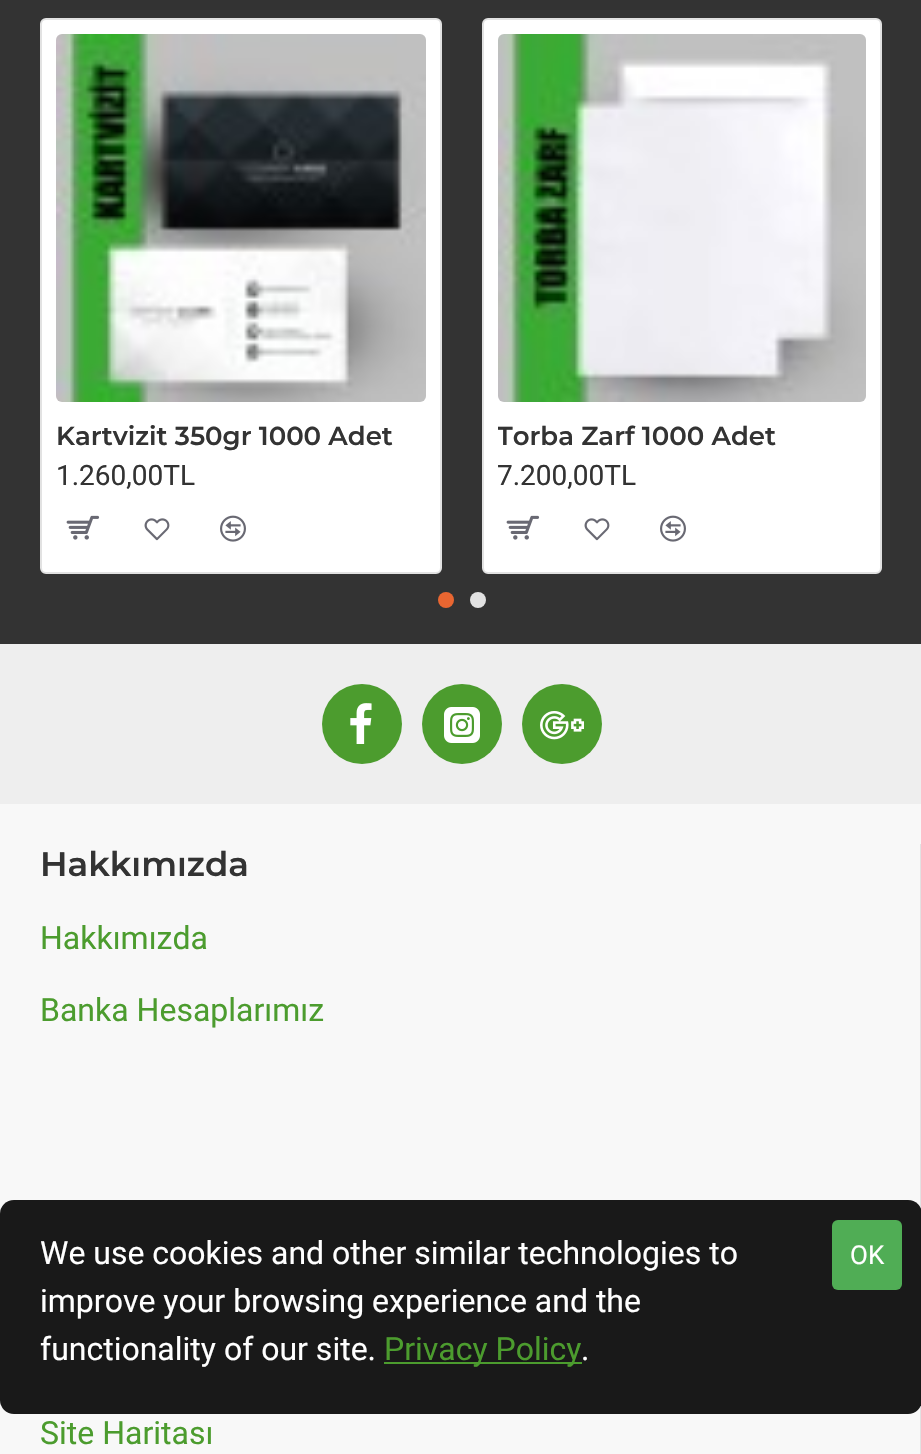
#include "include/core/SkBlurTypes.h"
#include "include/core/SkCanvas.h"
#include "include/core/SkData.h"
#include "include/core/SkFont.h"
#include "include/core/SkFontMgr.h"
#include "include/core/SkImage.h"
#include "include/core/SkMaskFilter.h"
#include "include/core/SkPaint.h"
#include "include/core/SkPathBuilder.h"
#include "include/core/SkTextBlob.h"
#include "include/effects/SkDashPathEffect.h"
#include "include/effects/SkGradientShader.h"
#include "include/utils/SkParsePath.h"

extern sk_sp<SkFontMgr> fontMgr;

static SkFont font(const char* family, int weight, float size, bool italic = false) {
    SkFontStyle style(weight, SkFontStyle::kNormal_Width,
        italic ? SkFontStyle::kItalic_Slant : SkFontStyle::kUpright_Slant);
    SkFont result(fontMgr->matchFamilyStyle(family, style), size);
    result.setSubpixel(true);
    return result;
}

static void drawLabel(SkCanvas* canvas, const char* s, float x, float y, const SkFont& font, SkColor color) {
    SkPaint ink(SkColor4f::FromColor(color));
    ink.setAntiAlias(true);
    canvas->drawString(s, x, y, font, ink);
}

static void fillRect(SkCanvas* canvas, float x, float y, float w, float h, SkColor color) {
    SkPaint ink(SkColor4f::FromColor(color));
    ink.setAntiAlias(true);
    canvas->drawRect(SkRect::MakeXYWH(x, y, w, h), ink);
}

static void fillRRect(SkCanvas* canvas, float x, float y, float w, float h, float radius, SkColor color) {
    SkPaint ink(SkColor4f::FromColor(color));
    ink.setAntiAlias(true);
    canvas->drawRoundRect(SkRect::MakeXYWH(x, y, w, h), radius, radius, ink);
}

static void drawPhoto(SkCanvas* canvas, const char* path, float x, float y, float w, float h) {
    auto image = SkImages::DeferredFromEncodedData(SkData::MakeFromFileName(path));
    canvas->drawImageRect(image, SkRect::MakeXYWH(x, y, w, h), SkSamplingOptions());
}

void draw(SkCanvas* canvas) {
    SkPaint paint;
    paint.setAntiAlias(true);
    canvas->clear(0xFFF8F8F8);
    fillRect(canvas, 0, 0, 921, 644, 0xFF333333);
    paint.setColor(0xFFFFFFFF);
    canvas->drawRoundRect(SkRect::MakeXYWH(41, 19, 400, 554), 5, 5, paint);
    paint.setStroke(true);
    paint.setStrokeWidth(2);
    paint.setColor(0xFFE2E2E2);
    canvas->drawRoundRect(SkRect::MakeXYWH(41, 19, 400, 554), 5, 5, paint);
    drawPhoto(canvas, "assets/img1.png", 56, 34, 370, 368);
    SkFont font1 = font("Montserrat", 600, 26);
    drawLabel(canvas, "Kartvizit 350gr 1000 Adet", 56, 445, font1, 0xFF333333);
    SkFont font2 = font("Roboto", 400, 28);
    drawLabel(canvas, "1.260,00TL", 56, 485, font2, 0xFF333333);
    drawPhoto(canvas, "assets/img2.png", 66, 515, 34, 25);
    drawPhoto(canvas, "assets/img3.png", 144, 518, 26, 23);
    drawPhoto(canvas, "assets/img4.png", 220, 515, 26, 27);
    paint.setStroke(false);
    paint.setColor(0xFFFFFFFF);
    canvas->drawRoundRect(SkRect::MakeXYWH(483, 19, 398, 554), 5, 5, paint);
    paint.setStroke(true);
    paint.setColor(0xFFE2E2E2);
    canvas->drawRoundRect(SkRect::MakeXYWH(483, 19, 398, 554), 5, 5, paint);
    drawPhoto(canvas, "assets/img5.png", 498, 34, 368, 368);
    canvas->save();
    canvas->clipRect(SkRect::MakeXYWH(498, 418, 368, 34));
    drawLabel(canvas, "Torba Zarf 1000 Adet", 497, 445, font1, 0xFF333333);
    canvas->restore();
    drawLabel(canvas, "7.200,00TL", 497, 485, font2, 0xFF333333);
    drawPhoto(canvas, "assets/img2.png", 506, 515, 34, 25);
    drawPhoto(canvas, "assets/img3.png", 584, 518, 26, 23);
    drawPhoto(canvas, "assets/img4.png", 660, 515, 26, 27);
    paint.setStroke(false);
    paint.setColor(0xFFE96631);
    canvas->drawCircle(446, 600, 8, paint);
    paint.setColor(0xFFE2E2E2);
    canvas->drawCircle(478, 600, 8, paint);
    fillRect(canvas, 0, 644, 921, 160, 0xFFEEEEEE);
    paint.setColor(0xFF4C9C2E);
    canvas->drawCircle(362, 724, 40, paint);
    drawPhoto(canvas, "assets/img6.png", 350, 703, 22, 41);
    canvas->drawCircle(462, 724, 40, paint);
    drawPhoto(canvas, "assets/img7.png", 444, 707, 36, 36);
    canvas->drawCircle(562, 724, 40, paint);
    drawPhoto(canvas, "assets/img8.png", 540, 711, 44, 29);
    fillRect(canvas, 920, 844, 1, 610, 0xFFE2E2E2);
    SkFont font3 = font("Montserrat", 600, 34);
    drawLabel(canvas, "Hakkımızda", 40, 876, font3, 0xFF333333);
    SkFont font4 = font("Roboto", 400, 32);
    drawLabel(canvas, "Hakkımızda", 40, 949, font4, 0xFF4C9C2E);
    drawLabel(canvas, "Banka Hesaplarımız", 40, 1021, font4, 0xFF4C9C2E);
    drawLabel(canvas, "Site Haritası", 40, 1444, font4, 0xFF4C9C2E);
    fillRRect(canvas, 0, 1200, 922, 214, 14, 0xE6000000);
    drawLabel(canvas, "We use cookies and other similar technologies to", 40, 1264, font4, 0xFFFFFFFF);
    drawLabel(canvas, "improve your browsing experience and the", 40, 1312, font4, 0xFFFFFFFF);
    drawLabel(canvas, "functionality of our site.", 40, 1360, font4, 0xFFFFFFFF);
    fillRect(canvas, 384, 1362, 198, 2, 0xFF4C9C2E);
    drawLabel(canvas, "Privacy Policy", 384, 1360, font4, 0xFF4C9C2E);
    drawLabel(canvas, ".", 581, 1360, font4, 0xFFFFFFFF);
    fillRRect(canvas, 832, 1220, 70, 70, 6, 0xFF50AD55);
    SkFont font5 = font("Roboto", 400, 26);
    drawLabel(canvas, "OK", 850, 1264, font5, 0xFFFFFFFF);
}
